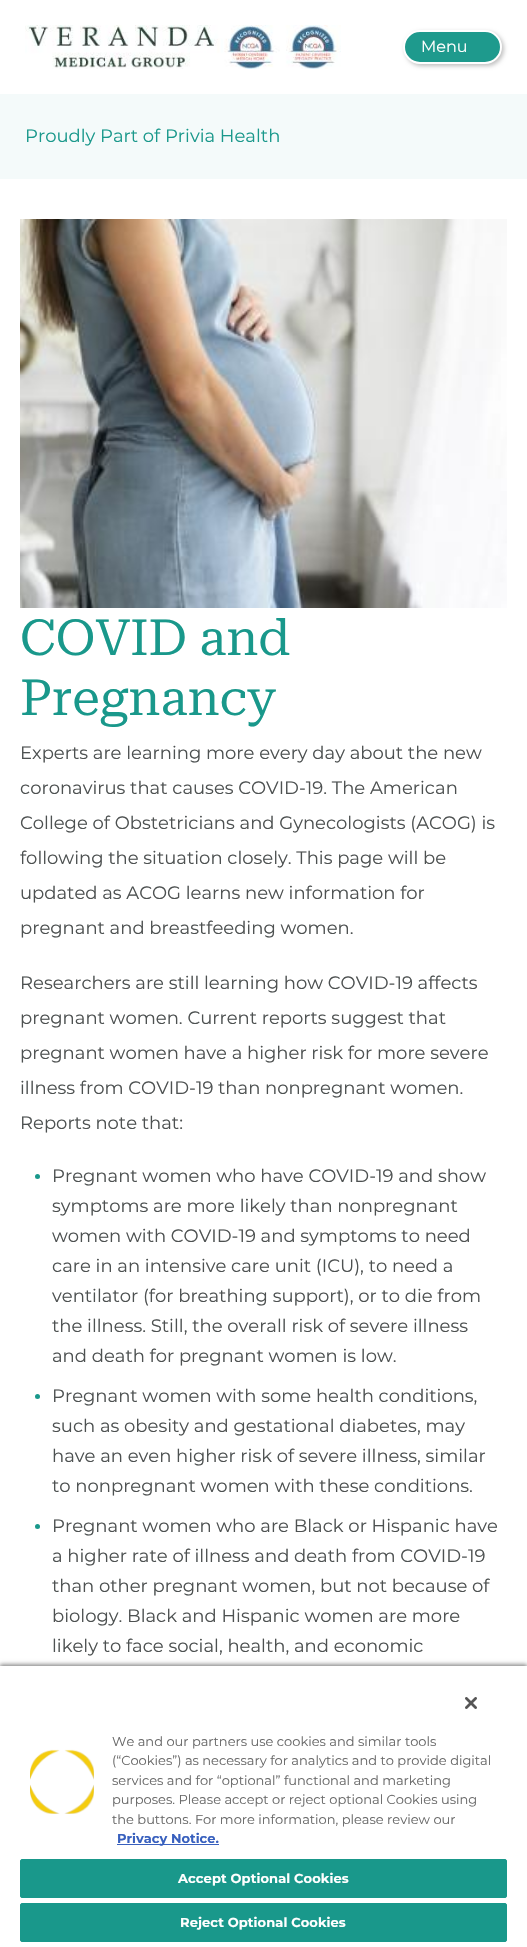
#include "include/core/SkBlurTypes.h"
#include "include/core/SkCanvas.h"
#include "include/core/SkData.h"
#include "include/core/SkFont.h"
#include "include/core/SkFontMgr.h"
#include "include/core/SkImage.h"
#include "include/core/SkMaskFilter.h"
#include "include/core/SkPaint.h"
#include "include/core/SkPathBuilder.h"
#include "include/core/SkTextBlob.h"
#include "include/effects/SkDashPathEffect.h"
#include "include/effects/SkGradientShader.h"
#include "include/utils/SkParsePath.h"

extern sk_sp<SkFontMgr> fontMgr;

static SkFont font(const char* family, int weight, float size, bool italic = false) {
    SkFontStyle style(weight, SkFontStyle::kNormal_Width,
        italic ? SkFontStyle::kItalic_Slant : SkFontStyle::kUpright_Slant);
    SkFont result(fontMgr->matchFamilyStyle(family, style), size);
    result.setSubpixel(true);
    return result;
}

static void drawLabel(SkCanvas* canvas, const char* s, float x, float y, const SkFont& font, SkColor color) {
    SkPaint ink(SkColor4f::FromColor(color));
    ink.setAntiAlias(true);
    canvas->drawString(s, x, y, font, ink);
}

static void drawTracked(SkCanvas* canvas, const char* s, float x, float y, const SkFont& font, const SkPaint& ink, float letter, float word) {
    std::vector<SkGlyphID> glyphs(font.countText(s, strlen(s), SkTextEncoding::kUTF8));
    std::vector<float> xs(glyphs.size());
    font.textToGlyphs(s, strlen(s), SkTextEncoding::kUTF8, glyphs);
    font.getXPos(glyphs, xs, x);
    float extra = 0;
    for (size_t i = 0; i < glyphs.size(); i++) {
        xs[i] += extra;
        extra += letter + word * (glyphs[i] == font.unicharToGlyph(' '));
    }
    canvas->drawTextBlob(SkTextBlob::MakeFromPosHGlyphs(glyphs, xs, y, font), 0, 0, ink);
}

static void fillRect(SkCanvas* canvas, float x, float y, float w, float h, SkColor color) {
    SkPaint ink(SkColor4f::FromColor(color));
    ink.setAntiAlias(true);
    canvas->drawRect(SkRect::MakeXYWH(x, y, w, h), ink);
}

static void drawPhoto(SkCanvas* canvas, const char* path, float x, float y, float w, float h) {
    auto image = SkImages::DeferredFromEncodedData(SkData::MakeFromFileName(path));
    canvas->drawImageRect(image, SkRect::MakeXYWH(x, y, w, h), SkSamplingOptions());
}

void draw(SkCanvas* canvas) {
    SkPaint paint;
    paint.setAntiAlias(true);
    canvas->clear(0xFFFFFFFF);
    drawPhoto(canvas, "assets/img1.png", 25, 25, 316, 44);
    paint.setColor(0x40000000);
    paint.setMaskFilter(SkMaskFilter::MakeBlur(kNormal_SkBlurStyle, 2));
    canvas->drawRoundRect(SkRect::MakeXYWH(405, 32, 99, 34), 17, 17, paint);
    paint.setMaskFilter(nullptr);
    paint.setColor(0xFF1E9A8D);
    canvas->drawRoundRect(SkRect::MakeXYWH(404, 31, 97, 32), 16, 16, paint);
    paint.setStroke(true);
    paint.setStrokeWidth(2);
    paint.setColor(0xFFFFFFFF);
    canvas->drawRoundRect(SkRect::MakeXYWH(404, 31, 97, 32), 16, 16, paint);
    SkFont font1 = font("Montserrat", 400, 16);
    drawLabel(canvas, "Menu", 421, 52, font1, 0xFFFFFFFF);
    fillRect(canvas, 0, 94, 527, 85, 0xFFF4FAFA);
    SkFont font2 = font("Montserrat", 400, 18);
    drawLabel(canvas, "Proudly Part of Privia Health", 25, 142, font2, 0xFF19988B);
    drawPhoto(canvas, "assets/img2.png", 20, 219, 487, 389);
    SkFont font3 = font("Roboto Serif", 400, 50);
    drawLabel(canvas, "COVID and", 20, 655, font3, 0xFF19988B);
    drawLabel(canvas, "Pregnancy", 20, 715, font3, 0xFF19988B);
    drawLabel(canvas, "Experts are learning more every day about the new", 20, 759, font2, 0xFF4D5151);
    drawLabel(canvas, "coronavirus that causes COVID-19. The American", 20, 794, font2, 0xFF4D5151);
    drawLabel(canvas, "College of Obstetricians and Gynecologists (ACOG) is", 20, 829, font2, 0xFF4D5151);
    drawLabel(canvas, "following the situation closely. This page will be", 20, 864, font2, 0xFF4D5151);
    drawLabel(canvas, "updated as ACOG learns new information for", 20, 899, font2, 0xFF4D5151);
    drawLabel(canvas, "pregnant and breastfeeding women.", 20, 934, font2, 0xFF4D5151);
    drawLabel(canvas, "Researchers are still learning how COVID-19 affects", 20, 989, font2, 0xFF4D5151);
    drawLabel(canvas, "pregnant women. Current reports suggest that", 20, 1024, font2, 0xFF4D5151);
    drawLabel(canvas, "pregnant women have a higher risk for more severe", 20, 1059, font2, 0xFF4D5151);
    drawLabel(canvas, "illness from COVID-19 than nonpregnant women.", 20, 1094, font2, 0xFF4D5151);
    drawLabel(canvas, "Reports note that:", 20, 1129, font2, 0xFF4D5151);
    paint.setStroke(false);
    paint.setColor(0xFF19988B);
    canvas->drawCircle(37.5f, 1176.5f, 2.5f, paint);
    drawLabel(canvas, "Pregnant women who have COVID-19 and show", 52, 1182, font2, 0xFF4D5151);
    drawLabel(canvas, "symptoms are more likely than nonpregnant", 52, 1212, font2, 0xFF4D5151);
    drawLabel(canvas, "women with COVID-19 and symptoms to need", 52, 1242, font2, 0xFF4D5151);
    drawLabel(canvas, "care in an intensive care unit (ICU), to need a", 52, 1272, font2, 0xFF4D5151);
    drawLabel(canvas, "ventilator (for breathing support), or to die from", 52, 1302, font2, 0xFF4D5151);
    drawLabel(canvas, "the illness. Still, the overall risk of severe illness", 52, 1332, font2, 0xFF4D5151);
    drawLabel(canvas, "and death for pregnant women is low.", 52, 1362, font2, 0xFF4D5151);
    canvas->drawCircle(37.5f, 1396.5f, 2.5f, paint);
    drawLabel(canvas, "Pregnant women with some health conditions,", 52, 1402, font2, 0xFF4D5151);
    drawLabel(canvas, "such as obesity and gestational diabetes, may", 52, 1432, font2, 0xFF4D5151);
    drawLabel(canvas, "have an even higher risk of severe illness, similar", 52, 1462, font2, 0xFF4D5151);
    drawLabel(canvas, "to nonpregnant women with these conditions.", 52, 1492, font2, 0xFF4D5151);
    canvas->drawCircle(37.5f, 1526.5f, 2.5f, paint);
    drawLabel(canvas, "Pregnant women who are Black or Hispanic have", 52, 1532, font2, 0xFF4D5151);
    drawLabel(canvas, "a higher rate of illness and death from COVID-19", 52, 1562, font2, 0xFF4D5151);
    drawLabel(canvas, "than other pregnant women, but not because of", 52, 1592, font2, 0xFF4D5151);
    drawLabel(canvas, "biology. Black and Hispanic women are more", 52, 1622, font2, 0xFF4D5151);
    drawLabel(canvas, "likely to face social, health, and economic", 52, 1652, font2, 0xFF4D5151);
    paint.setColor(0x59000000);
    paint.setMaskFilter(SkMaskFilter::MakeBlur(kNormal_SkBlurStyle, 2));
    canvas->drawRect(SkRect::MakeXYWH(0, 1664, 527, 283), paint);
    paint.setMaskFilter(nullptr);
    paint.setColor(0x33000000);
    paint.setMaskFilter(SkMaskFilter::MakeBlur(kNormal_SkBlurStyle, 2));
    canvas->drawRect(SkRect::MakeXYWH(0, 1666, 527, 281), paint);
    paint.setMaskFilter(nullptr);
    fillRect(canvas, 0, 1666, 527, 281, 0xFFFFFFFF);
    drawPhoto(canvas, "assets/img3.png", 465, 1697, 12, 12);
    drawPhoto(canvas, "assets/img4.png", 30, 1749, 64, 65);
    SkFont font4 = font("Montserrat", 400, 13);
    drawLabel(canvas, "We and our partners use cookies and similar tools", 112, 1746, font4, 0xFF696969);
    drawLabel(canvas, "(“Cookies”) as necessary for analytics and to provide digital", 112, 1765, font4, 0xFF696969);
    drawLabel(canvas, "services and for “optional” functional and marketing", 112, 1785, font4, 0xFF696969);
    drawLabel(canvas, "purposes. Please accept or reject optional Cookies using", 112, 1804, font4, 0xFF696969);
    drawLabel(canvas, "the buttons. For more information, please review our", 112, 1824, font4, 0xFF696969);
    fillRect(canvas, 117, 1844, 102, 1, 0xFF3860BE);
    SkFont font5 = font("Montserrat", 700, 13);
    drawLabel(canvas, "Privacy Notice.", 117, 1843, font5, 0xFF3860BE);
    paint.setColor(0xFF19988B);
    canvas->drawRoundRect(SkRect::MakeXYWH(20.5f, 1859.5f, 486, 38), 1.5f, 1.5f, paint);
    paint.setStroke(true);
    paint.setStrokeWidth(1);
    canvas->drawRoundRect(SkRect::MakeXYWH(20.5f, 1859.5f, 486, 38), 1.5f, 1.5f, paint);
    paint.setStroke(false);
    paint.setColor(0xFFFFFFFF);
    drawTracked(canvas, "Accept Optional Cookies", 178, 1883, font5, paint, 0.1f, 0);
    paint.setColor(0xFF19988B);
    canvas->drawRoundRect(SkRect::MakeXYWH(20.5f, 1903.5f, 486, 38), 1.5f, 1.5f, paint);
    paint.setStroke(true);
    canvas->drawRoundRect(SkRect::MakeXYWH(20.5f, 1903.5f, 486, 38), 1.5f, 1.5f, paint);
    paint.setStroke(false);
    paint.setColor(0xFFFFFFFF);
    drawTracked(canvas, "Reject Optional Cookies", 180, 1927, font5, paint, 0.1f, 0);
}
